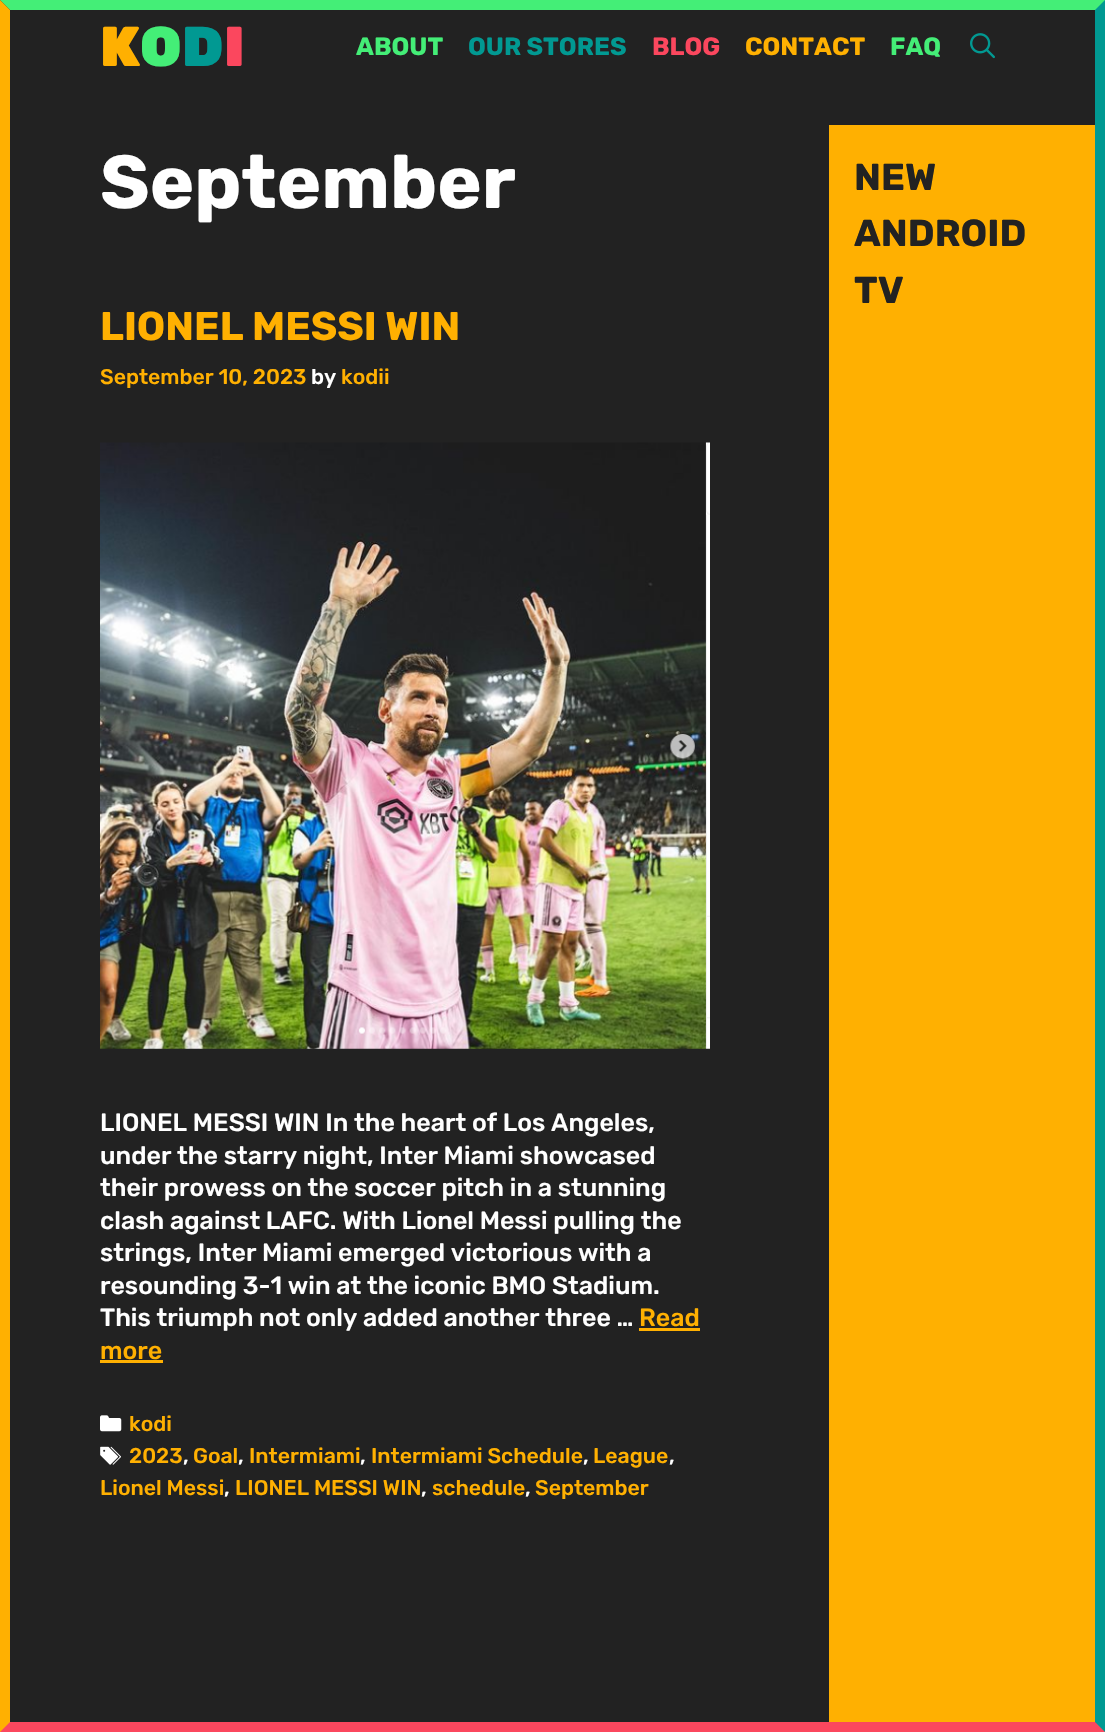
#include "include/core/SkBlurTypes.h"
#include "include/core/SkCanvas.h"
#include "include/core/SkData.h"
#include "include/core/SkFont.h"
#include "include/core/SkFontMgr.h"
#include "include/core/SkImage.h"
#include "include/core/SkMaskFilter.h"
#include "include/core/SkPaint.h"
#include "include/core/SkPathBuilder.h"
#include "include/core/SkTextBlob.h"
#include "include/effects/SkDashPathEffect.h"
#include "include/effects/SkGradientShader.h"
#include "include/utils/SkParsePath.h"

extern sk_sp<SkFontMgr> fontMgr;

static SkFont font(const char* family, int weight, float size, bool italic = false) {
    SkFontStyle style(weight, SkFontStyle::kNormal_Width,
        italic ? SkFontStyle::kItalic_Slant : SkFontStyle::kUpright_Slant);
    SkFont result(fontMgr->matchFamilyStyle(family, style), size);
    result.setSubpixel(true);
    return result;
}

static void drawLabel(SkCanvas* canvas, const char* s, float x, float y, const SkFont& font, SkColor color) {
    SkPaint ink(SkColor4f::FromColor(color));
    ink.setAntiAlias(true);
    canvas->drawString(s, x, y, font, ink);
}

static void fillRect(SkCanvas* canvas, float x, float y, float w, float h, SkColor color) {
    SkPaint ink(SkColor4f::FromColor(color));
    ink.setAntiAlias(true);
    canvas->drawRect(SkRect::MakeXYWH(x, y, w, h), ink);
}

static void drawPhoto(SkCanvas* canvas, const char* path, float x, float y, float w, float h) {
    auto image = SkImages::DeferredFromEncodedData(SkData::MakeFromFileName(path));
    canvas->drawImageRect(image, SkRect::MakeXYWH(x, y, w, h), SkSamplingOptions());
}

static SkPath parsePath(const char* data, bool evenOdd = false) {
    SkPath result = *SkParsePath::FromSVGString(data);
    if (evenOdd) result.setFillType(SkPathFillType::kEvenOdd);
    return result;
}

void draw(SkCanvas* canvas) {
    SkPaint paint;
    paint.setAntiAlias(true);
    canvas->clear(0xFF222222);
    paint.setColor(0xFF44EE77);
    canvas->drawPath(parsePath("M0 0H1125L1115 10H10Z"), paint);
    paint.setColor(0xFF019992);
    canvas->drawPath(parsePath("M1105 0V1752L1095 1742V10Z"), paint);
    paint.setColor(0xFFFB475E);
    canvas->drawPath(parsePath("M1105 1732H0V1722H1095Z"), paint);
    paint.setColor(0xFFFFB001);
    canvas->drawPath(parsePath("M0 1732V0L10 10V1722Z"), paint);
    SkFont font1 = font("Rubik", 900, 56);
    drawLabel(canvas, "K", 100, 66, font1, 0xFFFFB001);
    drawLabel(canvas, "O", 140, 66, font1, 0xFF44EE77);
    drawLabel(canvas, "D", 182, 66, font1, 0xFF019992);
    drawLabel(canvas, "I", 224, 66, font1, 0xFFFB475E);
    SkFont font2 = font("Rubik", 700, 25);
    drawLabel(canvas, "ABOUT", 356, 55, font2, 0xFF44EE77);
    drawLabel(canvas, "OUR STORES", 468, 55, font2, 0xFF019992);
    drawLabel(canvas, "BLOG", 652, 55, font2, 0xFFFB475E);
    drawLabel(canvas, "CONTACT", 745, 55, font2, 0xFFFFB001);
    drawLabel(canvas, "FAQ", 890, 55, font2, 0xFF44EE77);
    drawPhoto(canvas, "assets/img1.png", 970, 33, 25, 26);
    SkFont font3 = font("Rubik", 700, 75);
    drawLabel(canvas, "September", 100, 208, font3, 0xFFFFFFFF);
    SkFont font4 = font("Rubik", 700, 40);
    drawLabel(canvas, "LIONEL MESSI WIN", 100, 340, font4, 0xFFFFB001);
    SkFont font5 = font("Rubik", 500, 21.25f);
    drawLabel(canvas, "September 10, 2023", 100, 384, font5, 0xFFFFB001);
    drawLabel(canvas, "by", 311, 384, font5, 0xFFFFFFFF);
    drawLabel(canvas, "kodii", 341, 384, font5, 0xFFFFB001);
    drawPhoto(canvas, "assets/img2.png", 100, 442, 610, 607);
    SkFont font6 = font("Rubik", 500, 25);
    drawLabel(canvas, "LIONEL MESSI WIN In the heart of Los Angeles,", 100, 1131, font6, 0xFFFFFFFF);
    drawLabel(canvas, "under the starry night, Inter Miami showcased", 100, 1164, font6, 0xFFFFFFFF);
    drawLabel(canvas, "their prowess on the soccer pitch in a stunning", 100, 1196, font6, 0xFFFFFFFF);
    drawLabel(canvas, "clash against LAFC. With Lionel Messi pulling the", 100, 1229, font6, 0xFFFFFFFF);
    drawLabel(canvas, "strings, Inter Miami emerged victorious with a", 100, 1261, font6, 0xFFFFFFFF);
    drawLabel(canvas, "resounding 3-1 win at the iconic BMO Stadium.", 100, 1294, font6, 0xFFFFFFFF);
    drawLabel(canvas, "This triumph not only added another three …", 100, 1326, font6, 0xFFFFFFFF);
    drawLabel(canvas, "Read", 639, 1326, font6, 0xFFFFB001);
    fillRect(canvas, 639, 1328, 61, 3, 0xFFFFB001);
    drawLabel(canvas, "more", 100, 1359, font6, 0xFFFFB001);
    fillRect(canvas, 100, 1360, 63, 3, 0xFFFFB001);
    drawPhoto(canvas, "assets/img3.png", 100, 1415, 22, 17);
    drawLabel(canvas, "kodi", 129, 1431, font5, 0xFFFFB001);
    drawPhoto(canvas, "assets/img4.png", 100, 1446, 21, 19);
    drawLabel(canvas, "2023", 129, 1463, font5, 0xFFFFB001);
    drawLabel(canvas, ",", 183, 1463, font5, 0xFFFFFFFF);
    drawLabel(canvas, "Goal", 193, 1463, font5, 0xFFFFB001);
    drawLabel(canvas, ",", 238, 1463, font5, 0xFFFFFFFF);
    drawLabel(canvas, "Intermiami", 249, 1463, font5, 0xFFFFB001);
    drawLabel(canvas, ",", 360, 1463, font5, 0xFFFFFFFF);
    drawLabel(canvas, "Intermiami Schedule", 371, 1463, font5, 0xFFFFB001);
    drawLabel(canvas, ",", 583, 1463, font5, 0xFFFFFFFF);
    drawLabel(canvas, "League", 593, 1463, font5, 0xFFFFB001);
    drawLabel(canvas, ",", 669, 1463, font5, 0xFFFFFFFF);
    drawLabel(canvas, "Lionel Messi", 100, 1495, font5, 0xFFFFB001);
    drawLabel(canvas, ",", 224, 1495, font5, 0xFFFFFFFF);
    drawLabel(canvas, "LIONEL MESSI WIN", 235, 1495, font5, 0xFFFFB001);
    drawLabel(canvas, ",", 421, 1495, font5, 0xFFFFFFFF);
    drawLabel(canvas, "schedule", 432, 1495, font5, 0xFFFFB001);
    drawLabel(canvas, ",", 525, 1495, font5, 0xFFFFFFFF);
    drawLabel(canvas, "September", 535, 1495, font5, 0xFFFFB001);
    fillRect(canvas, 829, 125, 266, 1597, 0xFFFFB001);
    SkFont font7 = font("Rubik", 700, 37.5f);
    drawLabel(canvas, "NEW", 854, 190, font7, 0xFF222222);
    drawLabel(canvas, "ANDROID", 854, 246, font7, 0xFF222222);
    drawLabel(canvas, "TV", 854, 303, font7, 0xFF222222);
}
